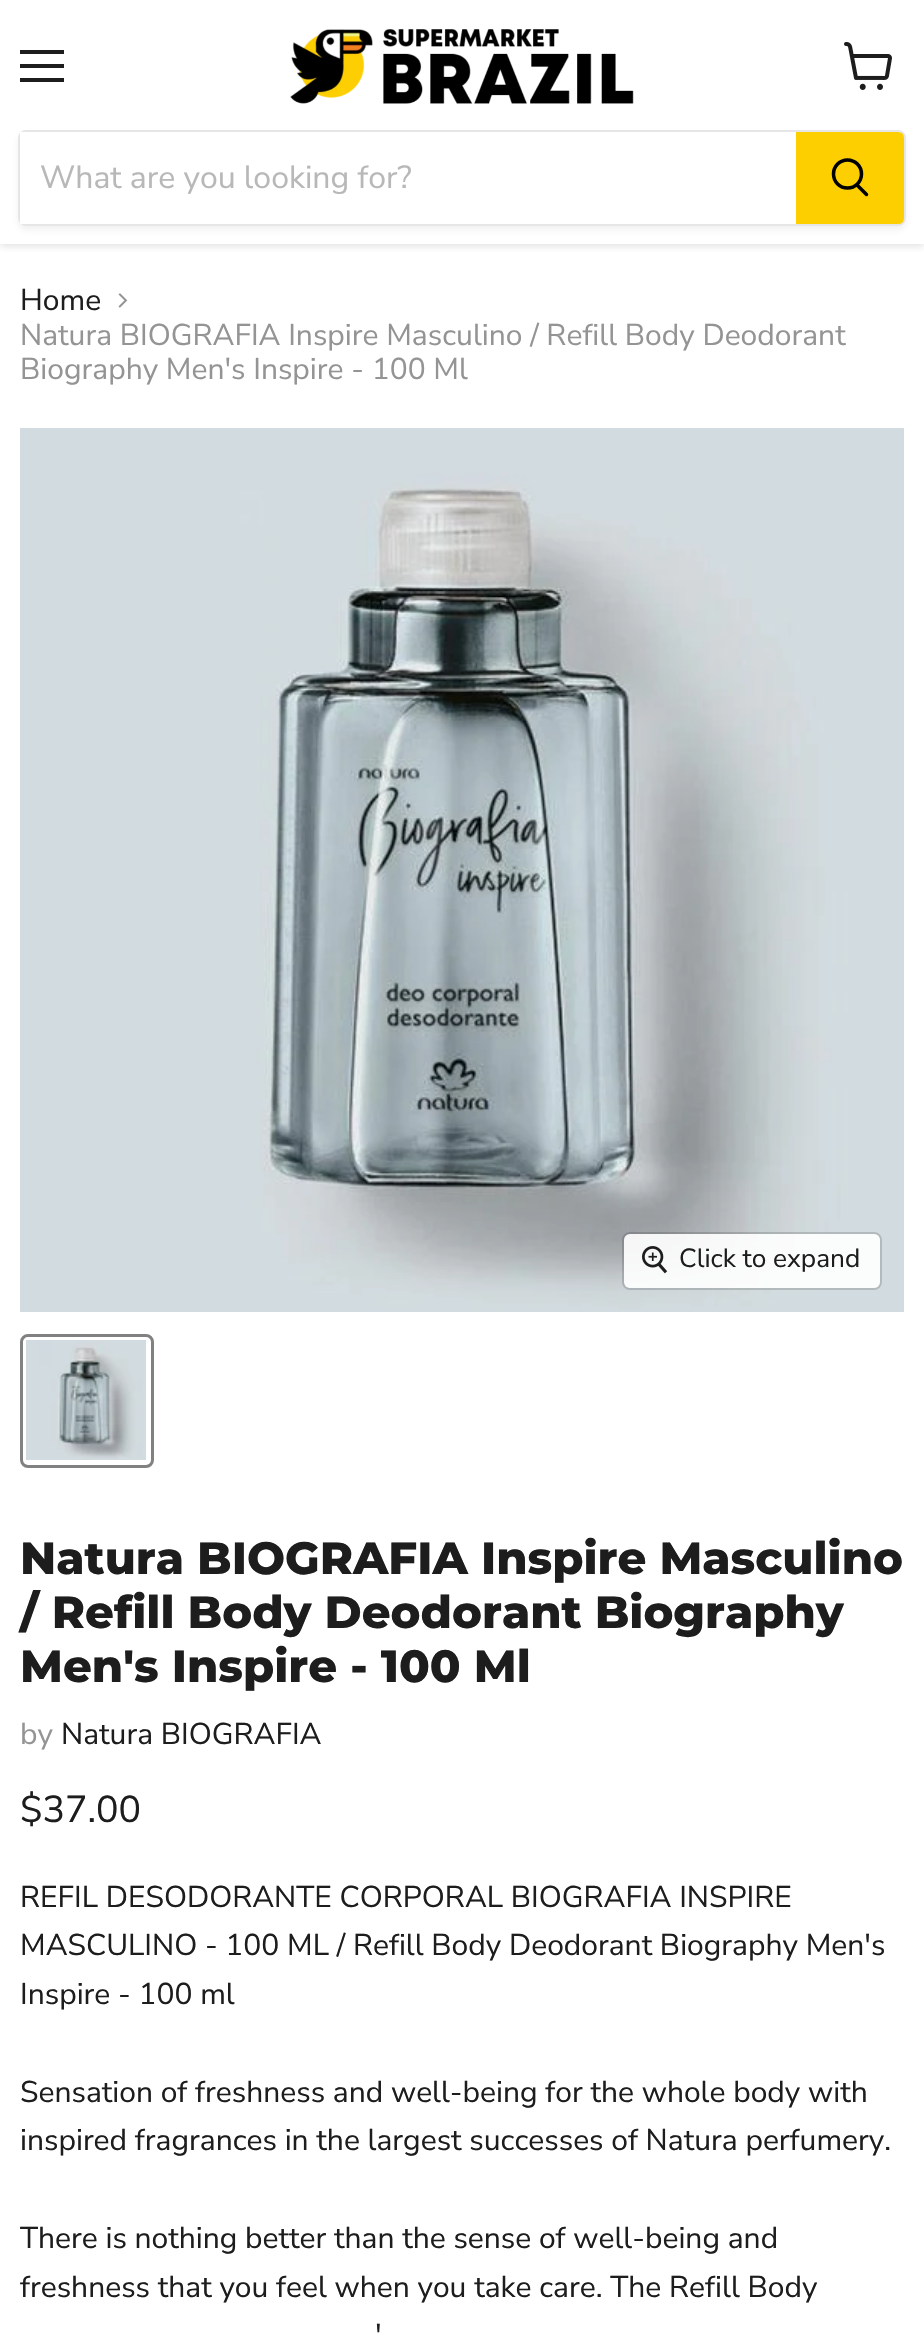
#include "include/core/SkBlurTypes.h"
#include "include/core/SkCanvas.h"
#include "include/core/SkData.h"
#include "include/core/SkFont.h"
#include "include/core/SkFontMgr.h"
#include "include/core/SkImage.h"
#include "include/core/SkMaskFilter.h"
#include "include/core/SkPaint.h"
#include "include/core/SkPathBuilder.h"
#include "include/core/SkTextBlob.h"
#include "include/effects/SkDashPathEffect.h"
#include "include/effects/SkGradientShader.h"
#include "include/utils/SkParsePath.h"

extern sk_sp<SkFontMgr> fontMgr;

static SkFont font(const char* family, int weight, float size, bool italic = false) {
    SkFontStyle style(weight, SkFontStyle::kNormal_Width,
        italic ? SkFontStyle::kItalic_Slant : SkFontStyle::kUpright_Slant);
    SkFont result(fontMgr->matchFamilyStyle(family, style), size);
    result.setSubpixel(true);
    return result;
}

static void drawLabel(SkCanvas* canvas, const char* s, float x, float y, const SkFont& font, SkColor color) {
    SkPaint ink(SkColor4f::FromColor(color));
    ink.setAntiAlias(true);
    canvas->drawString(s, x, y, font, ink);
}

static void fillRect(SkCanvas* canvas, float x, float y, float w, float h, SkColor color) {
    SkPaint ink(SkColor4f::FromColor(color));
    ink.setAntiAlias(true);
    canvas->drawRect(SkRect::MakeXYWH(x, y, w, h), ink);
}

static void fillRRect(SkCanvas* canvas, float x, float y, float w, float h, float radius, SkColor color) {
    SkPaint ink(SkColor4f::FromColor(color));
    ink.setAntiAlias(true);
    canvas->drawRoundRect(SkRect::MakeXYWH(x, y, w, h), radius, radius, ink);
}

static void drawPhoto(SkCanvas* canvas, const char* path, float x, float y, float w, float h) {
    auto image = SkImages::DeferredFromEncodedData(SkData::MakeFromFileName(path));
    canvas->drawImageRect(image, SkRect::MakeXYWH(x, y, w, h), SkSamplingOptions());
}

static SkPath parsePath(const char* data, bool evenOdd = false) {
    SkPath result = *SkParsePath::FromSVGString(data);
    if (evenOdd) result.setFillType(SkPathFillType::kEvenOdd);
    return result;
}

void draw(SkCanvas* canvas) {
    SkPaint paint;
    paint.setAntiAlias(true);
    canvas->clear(0xFFFFFFFF);
    canvas->save();
    canvas->clipRect(SkRect::MakeXYWH(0, 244, 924, 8));
    paint.setColor(0x40808080);
    paint.setMaskFilter(SkMaskFilter::MakeBlur(kNormal_SkBlurStyle, 4));
    canvas->drawRect(SkRect::MakeXYWH(0, 2, 924, 244), paint);
    paint.setMaskFilter(nullptr);
    canvas->restore();
    fillRect(canvas, 20, 50, 44, 4, 0xFF1D1D1D);
    fillRect(canvas, 20, 64, 44, 4, 0xFF1D1D1D);
    fillRect(canvas, 20, 78, 44, 4, 0xFF1D1D1D);
    drawPhoto(canvas, "assets/img1.png", 844, 42, 48, 48);
    drawPhoto(canvas, "assets/img2.png", 290, 29, 344, 75);
    canvas->save();
    canvas->clipPath(parsePath("M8 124H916V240H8ZM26 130H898C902.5 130 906 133.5 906 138V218C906 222.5 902.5 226 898 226H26C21.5 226 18 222.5 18 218V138C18 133.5 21.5 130 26 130Z", true), true);
    paint.setColor(0x1C808080);
    paint.setMaskFilter(SkMaskFilter::MakeBlur(kNormal_SkBlurStyle, 3));
    canvas->drawRoundRect(SkRect::MakeXYWH(18, 134, 888, 96), 8, 8, paint);
    paint.setMaskFilter(nullptr);
    canvas->restore();
    paint.setStroke(true);
    paint.setStrokeWidth(2);
    paint.setColor(0x33808080);
    canvas->drawRoundRect(SkRect::MakeXYWH(19, 131, 886, 94), 7, 7, paint);
    fillRect(canvas, 20, 132, 5, 92, 0xFFFFFFFF);
    SkFont font1 = font("Nunito Sans", 400, 32);
    drawLabel(canvas, "What are you looking for?", 40, 188, font1, 0xFFB8B8B8);
    paint.setStroke(false);
    paint.setColor(0xFFFDCE00);
    canvas->drawPath(parsePath("M797 133H898C901 133 903 135 903 138V218C903 221 901 223 898 223H797Z"), paint);
    paint.setStroke(true);
    canvas->drawPath(parsePath("M797 133H898C901 133 903 135 903 138V218C903 221 901 223 898 223H797Z"), paint);
    paint.setStrokeWidth(3.5f);
    paint.setStrokeCap(SkPaint::kRound_Cap);
    paint.setColor(0xFF000000);
    canvas->drawPath(parsePath("M866.5 194.5L857 185"), paint);
    paint.setStrokeCap(SkPaint::kButt_Cap);
    canvas->drawCircle(847.5f, 174, 14, paint);
    SkFont font2 = font("Nunito Sans", 400, 30);
    drawLabel(canvas, "Home", 20, 310, font2, 0xFF1D1D1D);
    drawPhoto(canvas, "assets/img3.png", 118, 293, 10, 15);
    drawLabel(canvas, "Natura BIOGRAFIA Inspire Masculino / Refill Body Deodorant", 20, 345, font2, 0xFF949494);
    drawLabel(canvas, "Biography Men's Inspire - 100 Ml", 20, 379, font2, 0xFF949494);
    drawPhoto(canvas, "assets/img4.png", 20, 428, 884, 884);
    paint.setStrokeWidth(2);
    paint.setColor(0x26000000);
    canvas->drawRoundRect(SkRect::MakeXYWH(623, 1233, 258, 56), 7, 7, paint);
    fillRRect(canvas, 624, 1234, 256, 54, 6, 0xE6FFFFFF);
    drawPhoto(canvas, "assets/img5.png", 642, 1246, 26, 28);
    SkFont font3 = font("Nunito Sans", 400, 26.25f);
    drawLabel(canvas, "Click to expand", 679, 1267, font3, 0xFF1D1D1D);
    paint.setStrokeWidth(3);
    paint.setColor(0xFF818181);
    canvas->drawRoundRect(SkRect::MakeXYWH(21.5f, 1335.5f, 131, 131), 6.5f, 6.5f, paint);
    drawPhoto(canvas, "assets/img6.png", 26, 1340, 120, 120);
    SkFont font4 = font("Montserrat", 800, 45);
    drawLabel(canvas, "Natura BIOGRAFIA Inspire Masculino", 20, 1574, font4, 0xFF1D1D1D);
    drawLabel(canvas, "/ Refill Body Deodorant Biography", 20, 1628, font4, 0xFF1D1D1D);
    drawLabel(canvas, "Men's Inspire - 100 Ml", 20, 1682, font4, 0xFF1D1D1D);
    drawLabel(canvas, "by", 20, 1744, font2, 0xFF949494);
    drawLabel(canvas, "Natura BIOGRAFIA", 61, 1744, font2, 0xFF1D1D1D);
    SkFont font5 = font("Nunito Sans", 400, 37.5f);
    drawLabel(canvas, "$37.00", 20, 1822, font5, 0xFF1D1D1D);
    drawLabel(canvas, "REFIL DESODORANTE CORPORAL BIOGRAFIA INSPIRE", 20, 1907, font2, 0xFF1D1D1D);
    drawLabel(canvas, "MASCULINO - 100 ML / Refill Body Deodorant Biography Men's", 20, 1955, font2, 0xFF1D1D1D);
    drawLabel(canvas, "Inspire - 100 ml", 20, 2004, font2, 0xFF1D1D1D);
    drawLabel(canvas, "Sensation of freshness and well-being for the whole body with", 20, 2102, font2, 0xFF1D1D1D);
    drawLabel(canvas, "inspired fragrances in the largest successes of Natura perfumery.", 20, 2150, font2, 0xFF1D1D1D);
    drawLabel(canvas, "There is nothing better than the sense of well-being and", 20, 2248, font2, 0xFF1D1D1D);
    drawLabel(canvas, "freshness that you feel when you take care. The Refill Body", 20, 2297, font2, 0xFF1D1D1D);
    drawLabel(canvas, "'", 375, 2345, font2, 0xFF1D1D1D);
}
